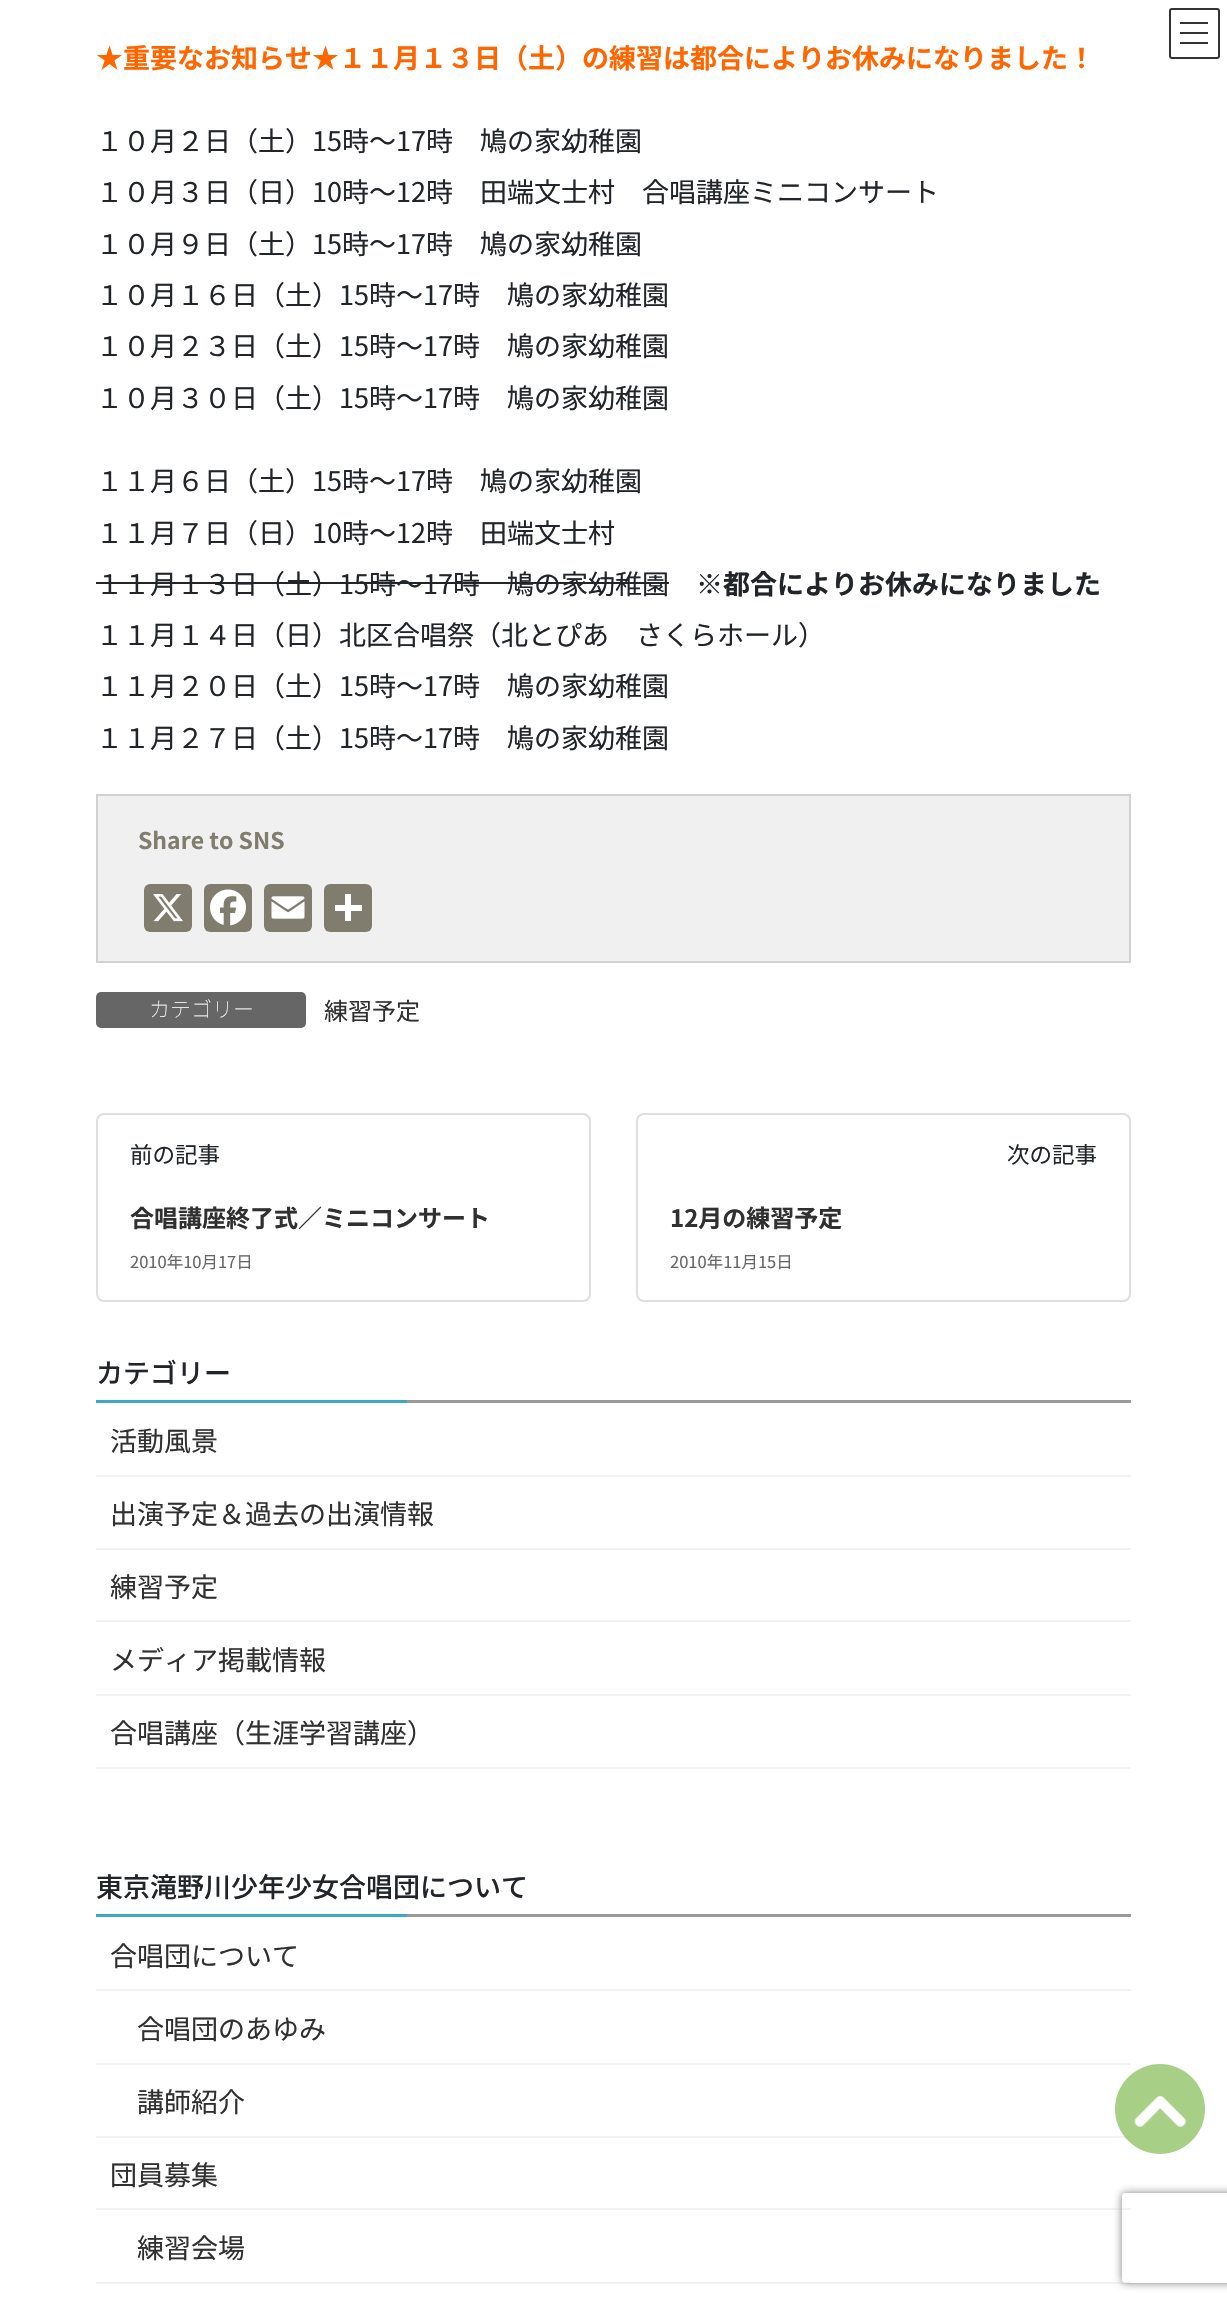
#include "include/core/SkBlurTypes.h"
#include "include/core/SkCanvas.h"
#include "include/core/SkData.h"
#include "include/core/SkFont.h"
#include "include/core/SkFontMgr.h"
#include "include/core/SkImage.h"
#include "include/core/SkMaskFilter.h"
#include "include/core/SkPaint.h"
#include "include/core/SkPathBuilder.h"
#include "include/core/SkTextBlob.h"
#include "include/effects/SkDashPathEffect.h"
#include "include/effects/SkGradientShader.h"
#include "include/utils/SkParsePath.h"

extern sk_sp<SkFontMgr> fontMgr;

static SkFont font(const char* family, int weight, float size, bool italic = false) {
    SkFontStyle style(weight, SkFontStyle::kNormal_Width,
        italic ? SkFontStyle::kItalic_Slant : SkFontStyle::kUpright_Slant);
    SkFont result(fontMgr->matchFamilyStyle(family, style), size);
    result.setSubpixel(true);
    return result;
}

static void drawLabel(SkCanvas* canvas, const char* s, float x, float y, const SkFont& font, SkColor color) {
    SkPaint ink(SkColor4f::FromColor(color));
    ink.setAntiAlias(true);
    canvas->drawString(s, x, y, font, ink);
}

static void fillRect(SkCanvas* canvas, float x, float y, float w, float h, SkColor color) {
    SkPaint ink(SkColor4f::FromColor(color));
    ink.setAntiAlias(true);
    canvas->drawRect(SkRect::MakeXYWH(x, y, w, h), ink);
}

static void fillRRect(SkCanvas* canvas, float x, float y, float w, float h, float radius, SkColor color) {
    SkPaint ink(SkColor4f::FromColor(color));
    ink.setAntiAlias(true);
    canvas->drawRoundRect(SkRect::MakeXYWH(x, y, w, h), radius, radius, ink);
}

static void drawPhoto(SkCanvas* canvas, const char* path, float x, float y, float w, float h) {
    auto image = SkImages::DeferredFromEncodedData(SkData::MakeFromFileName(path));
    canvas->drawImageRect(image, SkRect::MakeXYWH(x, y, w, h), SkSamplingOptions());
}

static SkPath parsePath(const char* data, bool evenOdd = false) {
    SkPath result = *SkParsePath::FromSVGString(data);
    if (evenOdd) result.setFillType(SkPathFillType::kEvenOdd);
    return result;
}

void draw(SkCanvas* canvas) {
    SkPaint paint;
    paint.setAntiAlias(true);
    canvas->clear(0xFFFFFFFF);
    fillRect(canvas, 1180, 22, 28, 2, 0xFF333333);
    fillRect(canvas, 1180, 32, 28, 2, 0xFF333333);
    fillRect(canvas, 1180, 42, 28, 2, 0xFF333333);
    paint.setStroke(true);
    paint.setStrokeWidth(2);
    paint.setColor(0xFF333333);
    canvas->drawRoundRect(SkRect::MakeXYWH(1170, 9, 49, 49), 2, 2, paint);
    SkFont font1 = font("Noto Sans JP", 700, 27);
    drawLabel(canvas, "★重要なお知らせ★１１月１３日（土）の練習は都合によりお休みになりました！", 96, 68, font1, 0xFFFF6600);
    SkFont font2 = font("Noto Sans JP", 400, 27);
    drawLabel(canvas, "１０月２日（土）15時～17時　鳩の家幼稚園", 96, 151, font2, 0xFF212529);
    drawLabel(canvas, "１０月３日（日）10時～12時　田端文士村　合唱講座ミニコンサート", 96, 202, font2, 0xFF212529);
    drawLabel(canvas, "１０月９日（土）15時～17時　鳩の家幼稚園", 96, 254, font2, 0xFF212529);
    drawLabel(canvas, "１０月１６日（土）15時～17時　鳩の家幼稚園", 96, 305, font2, 0xFF212529);
    drawLabel(canvas, "１０月２３日（土）15時～17時　鳩の家幼稚園", 96, 356, font2, 0xFF212529);
    drawLabel(canvas, "１０月３０日（土）15時～17時　鳩の家幼稚園", 96, 408, font2, 0xFF212529);
    drawLabel(canvas, "１１月６日（土）15時～17時　鳩の家幼稚園", 96, 491, font2, 0xFF212529);
    drawLabel(canvas, "１１月７日（日）10時～12時　田端文士村", 96, 543, font2, 0xFF212529);
    drawLabel(canvas, "１１月１３日（土）15時～17時　鳩の家幼稚園", 96, 594, font2, 0xFF212529);
    fillRect(canvas, 96, 582, 573, 2, 0xFF212529);
    drawLabel(canvas, "※都合によりお休みになりました", 696, 594, font1, 0xFF212529);
    drawLabel(canvas, "１１月１４日（日）北区合唱祭（北とぴあ　さくらホール）", 96, 645, font2, 0xFF212529);
    drawLabel(canvas, "１１月２０日（土）15時～17時　鳩の家幼稚園", 96, 696, font2, 0xFF212529);
    drawLabel(canvas, "１１月２７日（土）15時～17時　鳩の家幼稚園", 96, 748, font2, 0xFF212529);
    paint.setStroke(false);
    paint.setColor(0xFFF0F0F0);
    canvas->drawRect(SkRect::MakeXYWH(97, 795, 1033, 167), paint);
    paint.setStroke(true);
    paint.setColor(0xFFD1D1D1);
    canvas->drawRect(SkRect::MakeXYWH(97, 795, 1033, 167), paint);
    SkFont font3 = font("Noto Sans JP", 700, 23);
    drawLabel(canvas, "Share to SNS", 138, 849, font3, 0xFF807D6E);
    fillRRect(canvas, 144, 884, 48, 48, 6, 0xFF807D6E);
    drawPhoto(canvas, "assets/img1.png", 153, 894, 30, 28);
    fillRRect(canvas, 204, 884, 48, 48, 6, 0xFF807D6E);
    drawPhoto(canvas, "assets/img2.png", 210, 889, 36, 37);
    fillRRect(canvas, 264, 884, 48, 48, 6, 0xFF807D6E);
    drawPhoto(canvas, "assets/img3.png", 271, 896, 34, 23);
    fillRRect(canvas, 324, 884, 48, 48, 6, 0xFF807D6E);
    fillRect(canvas, 345, 894, 6, 27, 0xFFFFFFFF);
    fillRect(canvas, 335, 905, 27, 6, 0xFFFFFFFF);
    fillRRect(canvas, 96, 992, 210, 36, 5, 0xFF666666);
    SkFont font4 = font("Noto Sans JP", 100, 21);
    drawLabel(canvas, "カテゴリー", 149, 1017, font4, 0xFFFFFFFF);
    SkFont font5 = font("Noto Sans JP", 400, 24);
    drawLabel(canvas, "練習予定", 324, 1020, font5, 0xFF303030);
    paint.setColor(0xFFDFDFDF);
    canvas->drawRoundRect(SkRect::MakeXYWH(97, 1114, 493, 187), 7, 7, paint);
    SkFont font6 = font("Noto Sans JP", 400, 22.5f);
    drawLabel(canvas, "前の記事", 130, 1163, font6, 0xFF212529);
    SkFont font7 = font("Noto Sans JP", 700, 24);
    drawLabel(canvas, "合唱講座終了式／ミニコンサート", 130, 1227, font7, 0xFF303030);
    SkFont font8 = font("Noto Sans JP", 400, 16.5f);
    drawLabel(canvas, "2010年10月17日", 130, 1268, font8, 0xFF666666);
    canvas->drawRoundRect(SkRect::MakeXYWH(637, 1114, 493, 187), 7, 7, paint);
    drawLabel(canvas, "次の記事", 1007, 1163, font6, 0xFF212529);
    drawLabel(canvas, "12月の練習予定", 670, 1227, font7, 0xFF303030);
    drawLabel(canvas, "2010年11月15日", 670, 1268, font8, 0xFF666666);
    fillRect(canvas, 407, 1400, 724, 3, 0xFF999999);
    SkFont font9 = font("Noto Sans JP", 500, 27);
    drawLabel(canvas, "カテゴリー", 96, 1383, font9, 0xFF212529);
    fillRect(canvas, 96, 1400, 311, 3, 0xFF3BA9C5);
    fillRect(canvas, 96, 1475, 1035, 2, 0xFFF2F2F2);
    drawLabel(canvas, "活動風景", 110, 1451, font2, 0xFF303030);
    fillRect(canvas, 96, 1548, 1035, 2, 0xFFF2F2F2);
    drawLabel(canvas, "出演予定＆過去の出演情報", 110, 1524, font2, 0xFF303030);
    fillRect(canvas, 96, 1620, 1035, 2, 0xFFF2F2F2);
    drawLabel(canvas, "練習予定", 110, 1597, font2, 0xFF303030);
    fillRect(canvas, 96, 1694, 1035, 2, 0xFFF2F2F2);
    drawLabel(canvas, "メディア掲載情報", 110, 1670, font2, 0xFF303030);
    fillRect(canvas, 96, 1767, 1035, 2, 0xFFF2F2F2);
    drawLabel(canvas, "合唱講座（生涯学習講座）", 110, 1743, font2, 0xFF303030);
    fillRect(canvas, 407, 1914, 724, 3, 0xFF999999);
    drawLabel(canvas, "東京滝野川少年少女合唱団について", 96, 1897, font9, 0xFF212529);
    fillRect(canvas, 96, 1914, 311, 3, 0xFF3BA9C5);
    fillRect(canvas, 96, 1989, 1035, 2, 0xFFF2F2F2);
    drawLabel(canvas, "合唱団について", 110, 1966, font2, 0xFF303030);
    fillRect(canvas, 96, 2063, 1035, 2, 0xFFF2F2F2);
    drawLabel(canvas, "合唱団のあゆみ", 137, 2039, font2, 0xFF303030);
    fillRect(canvas, 96, 2136, 1035, 2, 0xFFF2F2F2);
    drawLabel(canvas, "講師紹介", 137, 2112, font2, 0xFF303030);
    fillRect(canvas, 96, 2208, 1035, 2, 0xFFF2F2F2);
    drawLabel(canvas, "団員募集", 110, 2185, font2, 0xFF303030);
    fillRect(canvas, 96, 2282, 1035, 2, 0xFFF2F2F2);
    drawLabel(canvas, "練習会場", 137, 2258, font2, 0xFF303030);
    paint.setStroke(false);
    paint.setColor(0xB383BA52);
    canvas->drawCircle(1160, 2109, 45, paint);
    drawPhoto(canvas, "assets/img4.png", 1134, 2095, 53, 32);
    canvas->save();
    canvas->clipPath(parsePath("M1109 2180H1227V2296H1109ZM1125 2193H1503C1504.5 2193 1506 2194.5 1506 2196V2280C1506 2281.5 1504.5 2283 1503 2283H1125C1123.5 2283 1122 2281.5 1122 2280V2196C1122 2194.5 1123.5 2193 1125 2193Z", true), true);
    paint.setColor(0xFF808080);
    paint.setMaskFilter(SkMaskFilter::MakeBlur(kNormal_SkBlurStyle, 4));
    canvas->drawRoundRect(SkRect::MakeXYWH(1122, 2193, 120, 90), 3, 3, paint);
    paint.setMaskFilter(nullptr);
    canvas->restore();
}
